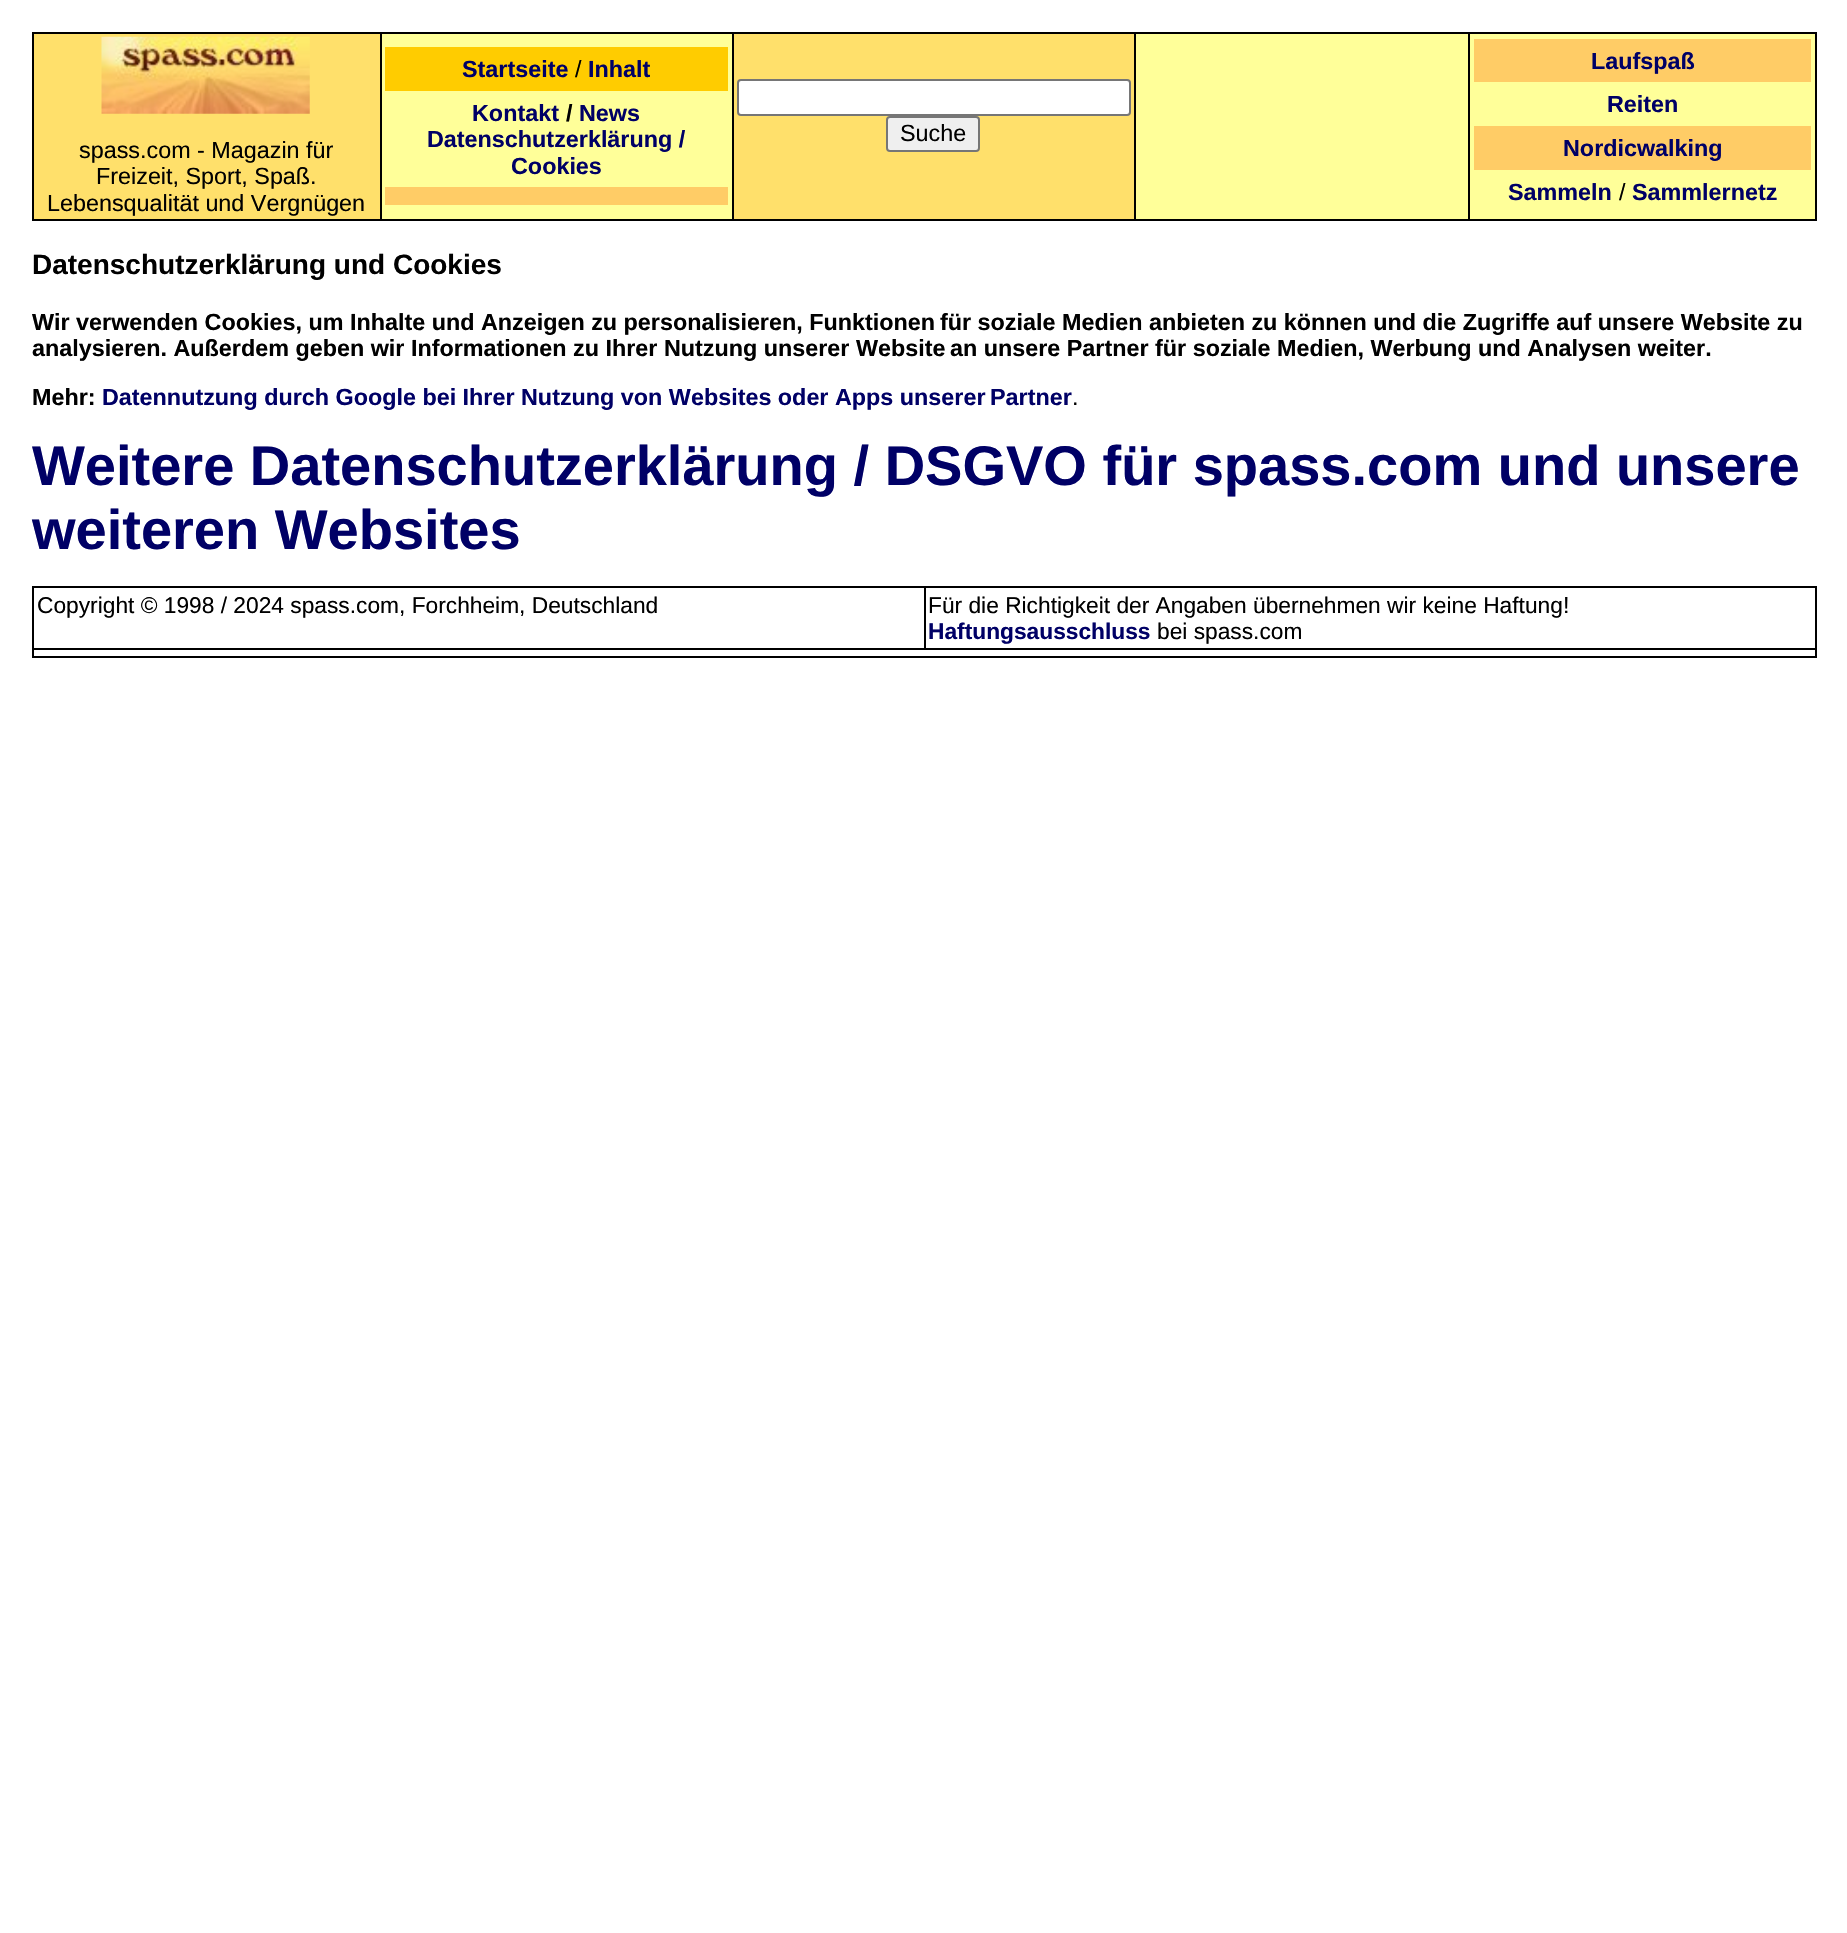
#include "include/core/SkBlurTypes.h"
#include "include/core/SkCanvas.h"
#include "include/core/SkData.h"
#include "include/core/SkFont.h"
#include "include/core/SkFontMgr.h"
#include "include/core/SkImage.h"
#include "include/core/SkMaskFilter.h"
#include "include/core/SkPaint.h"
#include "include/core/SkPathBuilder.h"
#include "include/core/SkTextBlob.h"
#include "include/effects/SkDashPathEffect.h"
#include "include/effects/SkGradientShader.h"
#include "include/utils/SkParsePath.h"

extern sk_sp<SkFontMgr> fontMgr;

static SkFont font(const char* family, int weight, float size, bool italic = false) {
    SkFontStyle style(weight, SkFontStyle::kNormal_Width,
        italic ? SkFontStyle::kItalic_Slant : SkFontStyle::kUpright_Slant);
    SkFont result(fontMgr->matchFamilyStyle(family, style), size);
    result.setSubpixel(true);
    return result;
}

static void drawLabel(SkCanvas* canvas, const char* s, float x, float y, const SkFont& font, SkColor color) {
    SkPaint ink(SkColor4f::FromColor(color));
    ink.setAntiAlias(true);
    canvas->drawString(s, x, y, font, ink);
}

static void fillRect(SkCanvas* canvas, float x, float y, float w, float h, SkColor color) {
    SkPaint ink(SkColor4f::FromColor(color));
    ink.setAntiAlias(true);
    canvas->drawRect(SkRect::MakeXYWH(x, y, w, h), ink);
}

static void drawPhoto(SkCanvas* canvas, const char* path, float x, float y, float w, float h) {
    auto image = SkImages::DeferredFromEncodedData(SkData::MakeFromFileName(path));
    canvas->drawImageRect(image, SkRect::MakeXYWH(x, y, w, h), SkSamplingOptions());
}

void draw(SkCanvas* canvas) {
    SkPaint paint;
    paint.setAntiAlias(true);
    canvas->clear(0xFFFFFFFF);
    fillRect(canvas, 382, 34, 1433, 185, 0xFFFFFF99);
    fillRect(canvas, 32, 32, 1785, 2, 0xFF000000);
    fillRect(canvas, 1815, 32, 2, 189, 0xFF000000);
    fillRect(canvas, 32, 219, 1785, 2, 0xFF000000);
    fillRect(canvas, 32, 32, 2, 189, 0xFF000000);
    fillRect(canvas, 380, 32, 2, 189, 0xFF000000);
    fillRect(canvas, 385, 47, 343, 44, 0xFFFFCC00);
    SkFont font1 = font("Liberation Sans", 700, 23.35f);
    drawLabel(canvas, "Startseite", 462, 77, font1, 0xFF000066);
    SkFont font2 = font("Liberation Sans", 400, 23.35f);
    drawLabel(canvas, "/", 575, 77, font2, 0xFF000000);
    drawLabel(canvas, "Inhalt", 588, 77, font1, 0xFF000066);
    drawLabel(canvas, "Kontakt", 472, 121, font1, 0xFF000066);
    drawLabel(canvas, "/", 566, 121, font1, 0xFF000000);
    drawLabel(canvas, "News", 579, 121, font1, 0xFF000066);
    drawLabel(canvas, "Datenschutzerklärung /", 427, 147, font1, 0xFF000066);
    drawLabel(canvas, "Cookies", 511, 174, font1, 0xFF000066);
    fillRect(canvas, 385, 187, 343, 18, 0xFFFFCC66);
    fillRect(canvas, 734, 34, 400, 185, 0xFFFFE06B);
    fillRect(canvas, 732, 32, 2, 189, 0xFF000000);
    paint.setColor(0xFFFFFFFF);
    canvas->drawRoundRect(SkRect::MakeXYWH(738, 80, 392, 35), 3, 3, paint);
    paint.setStroke(true);
    paint.setStrokeWidth(2);
    paint.setColor(0xFF767676);
    canvas->drawRoundRect(SkRect::MakeXYWH(738, 80, 392, 35), 3, 3, paint);
    paint.setStroke(false);
    paint.setColor(0xFFEFEFEF);
    canvas->drawRoundRect(SkRect::MakeXYWH(887, 117, 92, 34), 3, 3, paint);
    paint.setStroke(true);
    paint.setColor(0xFF767676);
    canvas->drawRoundRect(SkRect::MakeXYWH(887, 117, 92, 34), 3, 3, paint);
    drawLabel(canvas, "Suche", 900, 141, font2, 0xFF000000);
    fillRect(canvas, 1134, 32, 2, 189, 0xFF000000);
    fillRect(canvas, 1468, 32, 2, 189, 0xFF000000);
    fillRect(canvas, 1474, 39, 337, 43, 0xFFFFCC66);
    drawLabel(canvas, "Laufspaß", 1591, 69, font1, 0xFF000066);
    drawLabel(canvas, "Reiten", 1607, 112, font1, 0xFF000066);
    fillRect(canvas, 1474, 126, 337, 44, 0xFFFFCC66);
    drawLabel(canvas, "Nordicwalking", 1563, 156, font1, 0xFF000066);
    drawLabel(canvas, "Sammeln", 1508, 200, font1, 0xFF000066);
    drawLabel(canvas, "/", 1619, 200, font2, 0xFF000000);
    drawLabel(canvas, "Sammlernetz", 1632, 200, font1, 0xFF000066);
    fillRect(canvas, 34, 34, 346, 185, 0xFFFFE06B);
    drawPhoto(canvas, "assets/img1.png", 101, 36, 209, 78);
    drawLabel(canvas, "spass.com - Magazin für", 79, 158, font2, 0xFF000000);
    drawLabel(canvas, "Freizeit, Sport, Spaß.", 96, 184, font2, 0xFF000000);
    drawLabel(canvas, "Lebensqualität und Vergnügen", 47, 211, font2, 0xFF000000);
    SkFont font3 = font("Liberation Sans", 700, 28);
    drawLabel(canvas, "Datenschutzerklärung und Cookies", 32, 274, font3, 0xFF000000);
    drawLabel(canvas, "Wir verwenden Cookies, um Inhalte und Anzeigen zu personalisieren, Funktionen", 32, 330, font1, 0xFF000000);
    drawLabel(canvas, "für soziale Medien anbieten zu können und die Zugriffe auf unsere Website zu", 940, 330, font1, 0xFF000000);
    drawLabel(canvas, "analysieren. Außerdem geben wir Informationen zu Ihrer Nutzung unserer Website", 32, 356, font1, 0xFF000000);
    drawLabel(canvas, "an unsere Partner für soziale Medien, Werbung und Analysen weiter.", 950, 356, font1, 0xFF000000);
    drawLabel(canvas, "Mehr:", 32, 405, font1, 0xFF000000);
    drawLabel(canvas, "Datennutzung durch Google bei Ihrer Nutzung von Websites oder Apps unserer", 102, 405, font1, 0xFF000066);
    drawLabel(canvas, "Partner", 990, 405, font1, 0xFF000066);
    drawLabel(canvas, ".", 1072, 405, font2, 0xFF000000);
    SkFont font4 = font("Liberation Sans", 700, 56);
    drawLabel(canvas, "Weitere Datenschutzerklärung / DSGVO für spass.com und unsere", 32, 485, font4, 0xFF000066);
    drawLabel(canvas, "weiteren Websites", 32, 549, font4, 0xFF000066);
    fillRect(canvas, 32, 586, 1785, 2, 0xFF000000);
    fillRect(canvas, 1815, 586, 2, 72, 0xFF000000);
    fillRect(canvas, 32, 656, 1785, 2, 0xFF000000);
    fillRect(canvas, 32, 586, 2, 72, 0xFF000000);
    SkFont font5 = font("Liberation Sans", 400, 22.75f);
    drawLabel(canvas, "Copyright © 1998 / 2024 spass.com, Forchheim, Deutschland", 37, 613, font5, 0xFF000000);
    fillRect(canvas, 32, 648, 1785, 2, 0xFF000000);
    fillRect(canvas, 924, 586, 2, 63, 0xFF000000);
    drawLabel(canvas, "Für die Richtigkeit der Angaben übernehmen wir keine Haftung", 928, 613, font5, 0xFF000000);
    drawLabel(canvas, "!", 1563, 613, font2, 0xFF000000);
    SkFont font6 = font("Liberation Sans", 700, 22.75f);
    drawLabel(canvas, "Haftungsausschluss", 928, 639, font6, 0xFF000066);
    drawLabel(canvas, "bei spass.com", 1157, 639, font5, 0xFF000000);
}
